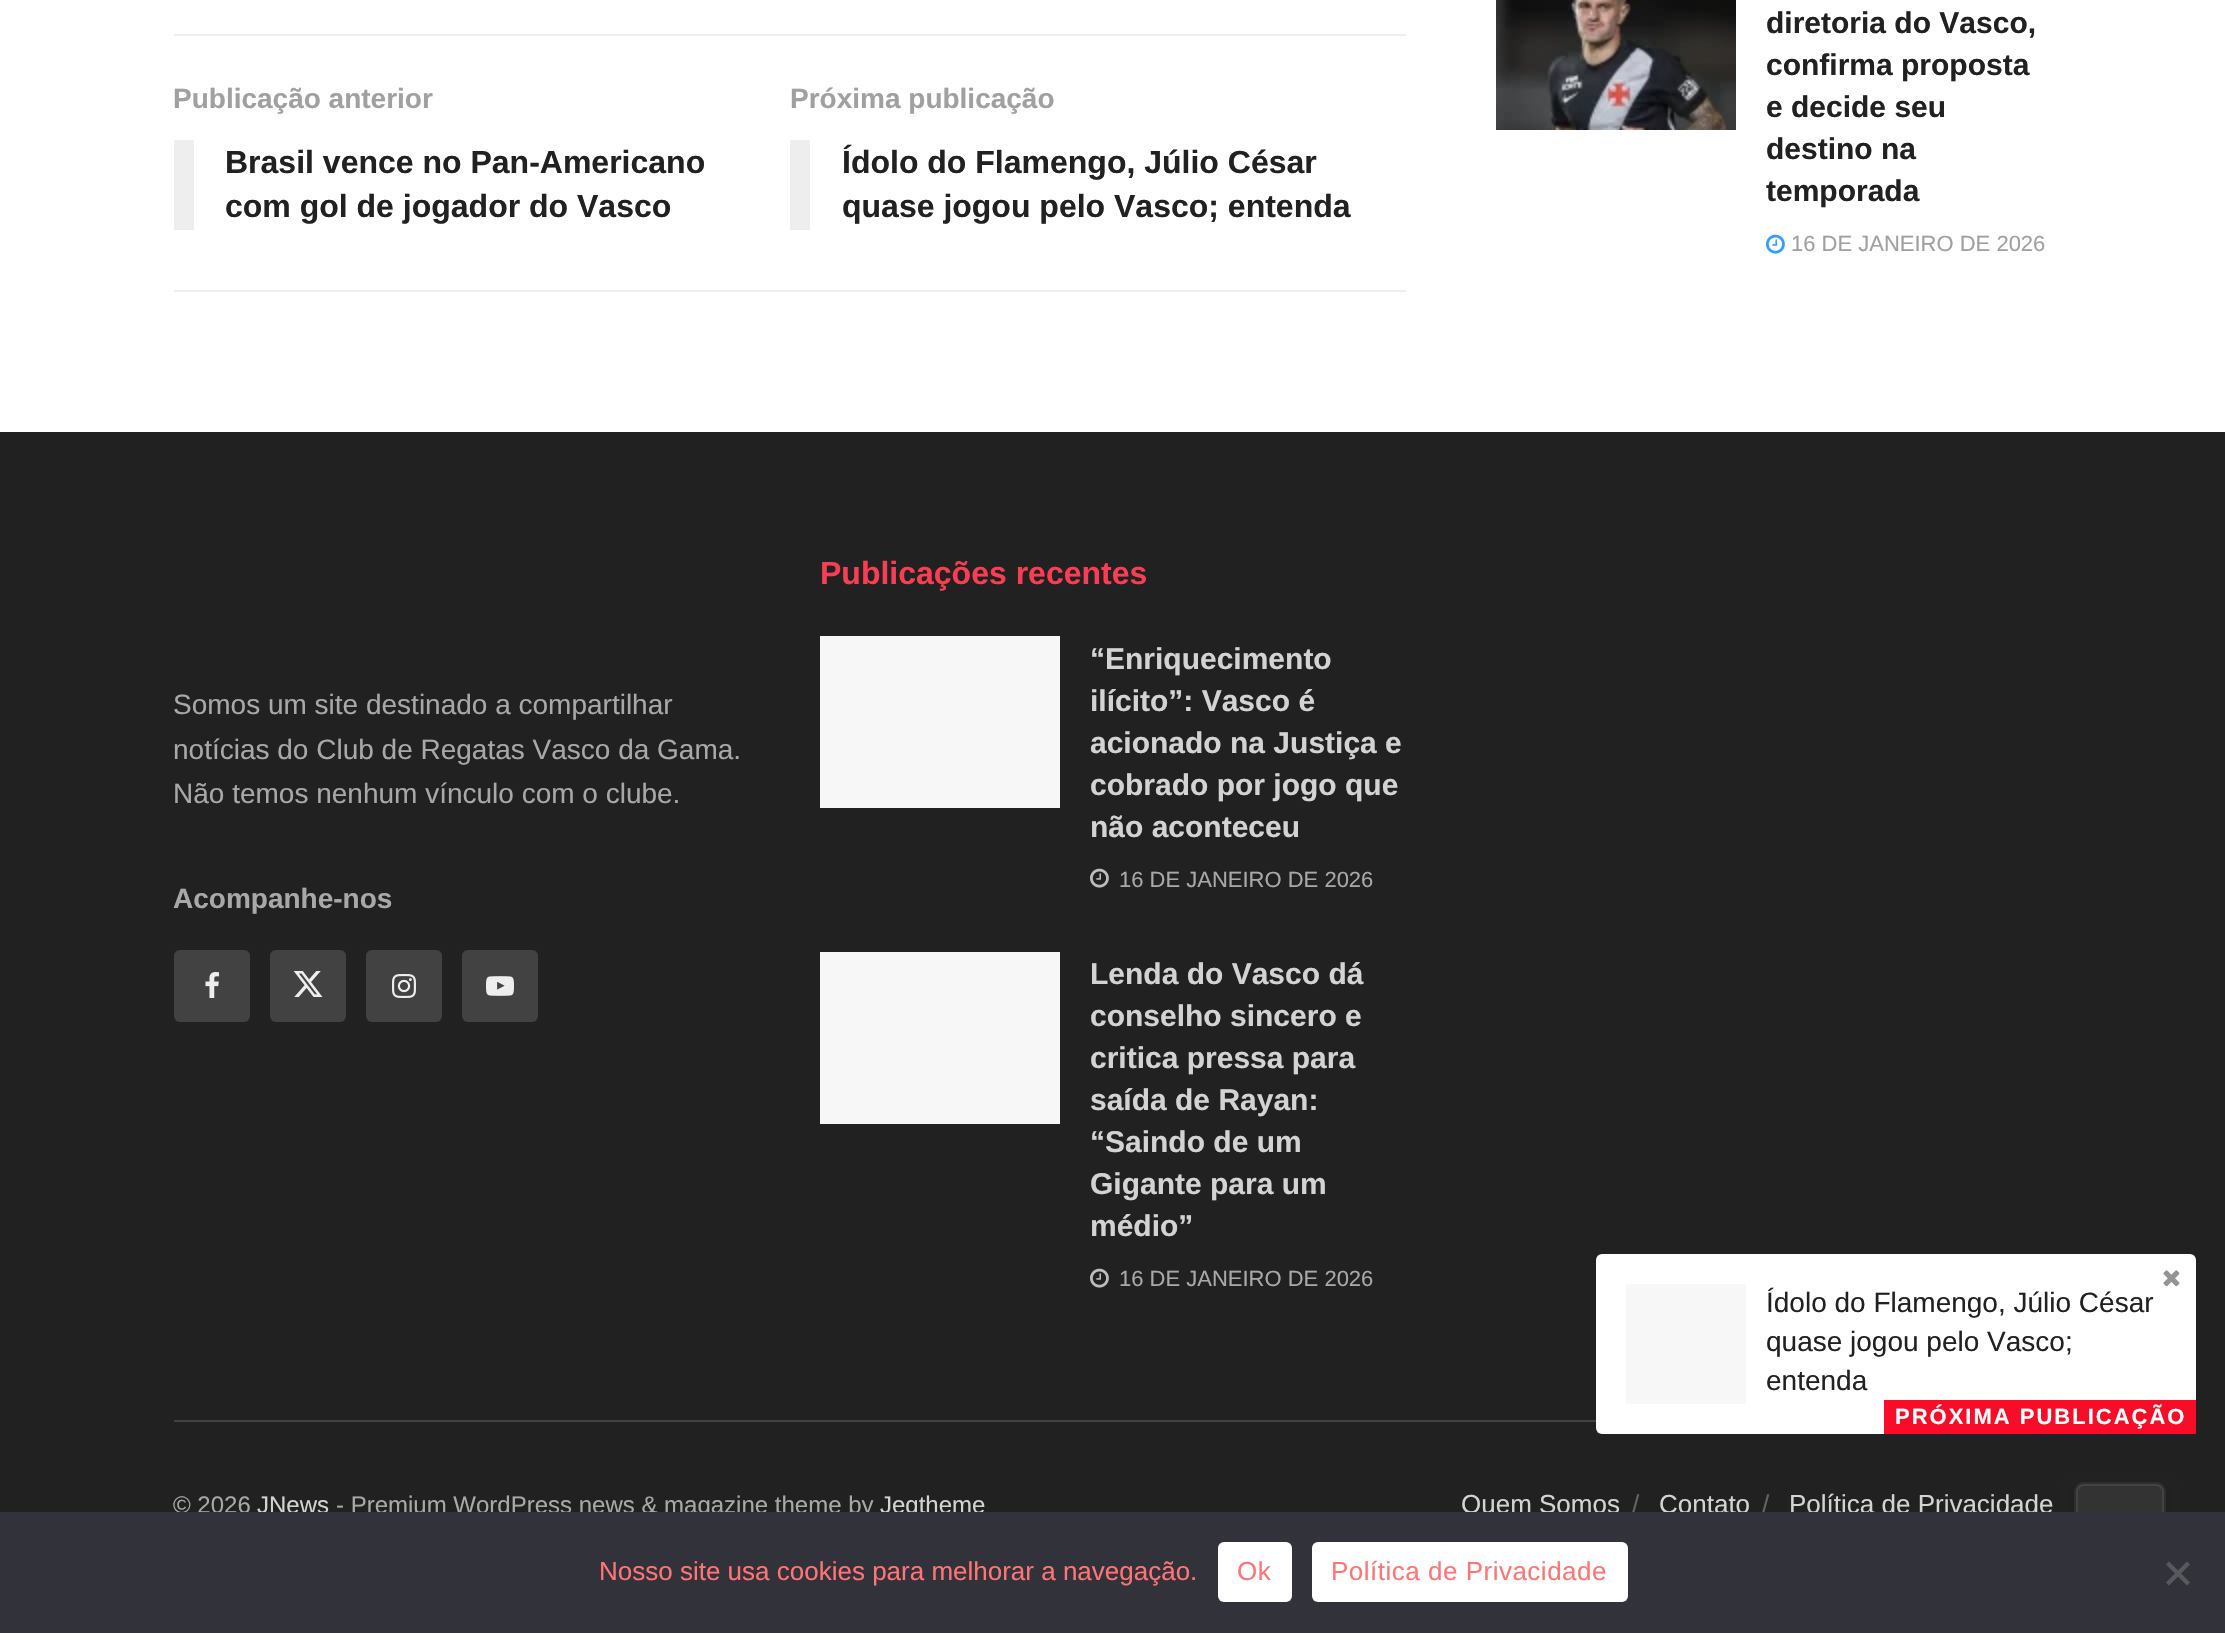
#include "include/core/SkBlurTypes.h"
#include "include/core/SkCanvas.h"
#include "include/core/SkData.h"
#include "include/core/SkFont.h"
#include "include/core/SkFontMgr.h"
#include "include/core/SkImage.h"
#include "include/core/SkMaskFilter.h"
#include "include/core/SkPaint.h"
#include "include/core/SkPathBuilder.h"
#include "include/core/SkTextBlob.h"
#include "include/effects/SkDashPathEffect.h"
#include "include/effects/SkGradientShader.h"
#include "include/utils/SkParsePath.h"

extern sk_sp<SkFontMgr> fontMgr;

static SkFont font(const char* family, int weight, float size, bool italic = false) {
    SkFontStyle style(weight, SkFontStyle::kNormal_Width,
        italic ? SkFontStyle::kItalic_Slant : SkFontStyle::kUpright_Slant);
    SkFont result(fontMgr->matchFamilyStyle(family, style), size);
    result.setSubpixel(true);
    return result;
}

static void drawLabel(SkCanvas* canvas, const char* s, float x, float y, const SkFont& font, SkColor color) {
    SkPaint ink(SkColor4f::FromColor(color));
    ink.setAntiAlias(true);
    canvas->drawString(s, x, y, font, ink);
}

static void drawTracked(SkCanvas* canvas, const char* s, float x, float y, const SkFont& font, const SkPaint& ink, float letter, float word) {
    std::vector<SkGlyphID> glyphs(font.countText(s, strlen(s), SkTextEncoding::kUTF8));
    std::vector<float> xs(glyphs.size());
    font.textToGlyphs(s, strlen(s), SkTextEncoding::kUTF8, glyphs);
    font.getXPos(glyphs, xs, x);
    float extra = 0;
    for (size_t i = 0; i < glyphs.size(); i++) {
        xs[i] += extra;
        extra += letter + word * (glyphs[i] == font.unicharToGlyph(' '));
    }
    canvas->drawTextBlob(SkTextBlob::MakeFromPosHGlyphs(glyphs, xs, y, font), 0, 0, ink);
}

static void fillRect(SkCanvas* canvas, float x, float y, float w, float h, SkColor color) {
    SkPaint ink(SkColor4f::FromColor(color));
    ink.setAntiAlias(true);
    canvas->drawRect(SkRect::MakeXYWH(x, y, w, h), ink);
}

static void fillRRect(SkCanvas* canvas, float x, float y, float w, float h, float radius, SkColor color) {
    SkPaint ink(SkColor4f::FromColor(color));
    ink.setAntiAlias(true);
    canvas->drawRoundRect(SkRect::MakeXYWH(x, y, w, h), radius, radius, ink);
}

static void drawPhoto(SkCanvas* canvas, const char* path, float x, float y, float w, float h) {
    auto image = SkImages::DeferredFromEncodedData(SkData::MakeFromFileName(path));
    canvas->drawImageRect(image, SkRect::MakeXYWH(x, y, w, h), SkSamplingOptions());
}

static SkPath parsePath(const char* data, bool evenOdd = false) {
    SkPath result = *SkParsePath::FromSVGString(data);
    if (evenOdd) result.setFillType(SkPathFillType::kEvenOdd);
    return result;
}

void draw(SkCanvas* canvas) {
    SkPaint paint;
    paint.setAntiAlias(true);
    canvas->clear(0xFFFFFFFF);
    drawPhoto(canvas, "assets/img1.png", 1496, 0, 240, 130);
    SkFont font1 = font("Liberation Sans", 700, 30);
    drawLabel(canvas, "diretoria do Vasco,", 1766, 33, font1, 0xFF212121);
    drawLabel(canvas, "confirma proposta", 1766, 75, font1, 0xFF212121);
    drawLabel(canvas, "e decide seu", 1766, 117, font1, 0xFF212121);
    drawLabel(canvas, "destino na", 1766, 159, font1, 0xFF212121);
    drawLabel(canvas, "temporada", 1766, 201, font1, 0xFF212121);
    drawPhoto(canvas, "assets/img2.png", 1766, 234, 19, 20);
    SkFont font2 = font("Liberation Sans", 400, 22);
    drawLabel(canvas, "16 DE JANEIRO DE 2026", 1791, 251, font2, 0xFFA0A0A0);
    fillRect(canvas, 174, 34, 1232, 2, 0xFFEEEEEE);
    fillRect(canvas, 174, 290, 1232, 2, 0xFFEEEEEE);
    SkFont font3 = font("Liberation Sans", 700, 28);
    drawLabel(canvas, "Publicação anterior", 173, 108, font3, 0xFFA0A0A0);
    fillRect(canvas, 174, 140, 20, 90, 0xFFEEEEEE);
    SkFont font4 = font("Liberation Sans", 700, 32);
    drawLabel(canvas, "Brasil vence no Pan-Americano", 225, 173, font4, 0xFF212121);
    drawLabel(canvas, "com gol de jogador do Vasco", 225, 217, font4, 0xFF212121);
    drawLabel(canvas, "Próxima publicação", 790, 108, font3, 0xFFA0A0A0);
    fillRect(canvas, 790, 140, 20, 90, 0xFFEEEEEE);
    drawLabel(canvas, "Ídolo do Flamengo, Júlio César", 842, 173, font4, 0xFF212121);
    drawLabel(canvas, "quase jogou pelo Vasco; entenda", 842, 217, font4, 0xFF212121);
    fillRect(canvas, 0, 432, 2225, 1080, 0xFF212121);
    fillRRect(canvas, 1596, 1254, 600, 180, 6, 0xFFFFFFFF);
    drawPhoto(canvas, "assets/img3.png", 2163, 1270, 17, 17);
    fillRect(canvas, 1626, 1284, 120, 120, 0xFFF7F7F7);
    SkFont font5 = font("Liberation Sans", 400, 28);
    drawLabel(canvas, "Ídolo do Flamengo, Júlio César", 1766, 1312, font5, 0xFF212121);
    drawLabel(canvas, "quase jogou pelo Vasco;", 1766, 1351, font5, 0xFF212121);
    drawLabel(canvas, "entenda", 1766, 1390, font5, 0xFF212121);
    fillRect(canvas, 1884, 1400, 312, 34, 0xFFF70D28);
    SkFont font6 = font("Liberation Sans", 700, 22);
    paint.setColor(0xFFFFFFFF);
    drawTracked(canvas, "PRÓXIMA PUBLICAÇÃO", 1895, 1424, font6, paint, 2, 0);
    drawLabel(canvas, "Somos um site destinado a compartilhar", 173, 714, font5, 0xFFA8A8AA);
    drawLabel(canvas, "notícias do Club de Regatas Vasco da Gama.", 173, 759, font5, 0xFFA8A8AA);
    drawLabel(canvas, "Não temos nenhum vínculo com o clube.", 173, 803, font5, 0xFFA8A8AA);
    drawLabel(canvas, "Acompanhe-nos", 173, 908, font3, 0xFFA8A8AA);
    fillRRect(canvas, 174, 950, 76, 72, 6, 0xFF424242);
    drawPhoto(canvas, "assets/img4.png", 205, 972, 14, 26);
    fillRRect(canvas, 270, 950, 76, 72, 6, 0xFF424242);
    drawPhoto(canvas, "assets/img5.png", 293, 971, 30, 26);
    fillRRect(canvas, 366, 950, 76, 72, 6, 0xFF424242);
    drawPhoto(canvas, "assets/img6.png", 392, 974, 24, 24);
    fillRRect(canvas, 462, 950, 76, 72, 6, 0xFF424242);
    drawPhoto(canvas, "assets/img7.png", 486, 976, 28, 20);
    drawLabel(canvas, "Publicações recentes", 820, 584, font4, 0xFFF93D53);
    fillRect(canvas, 820, 636, 240, 172, 0xFFF7F7F7);
    drawLabel(canvas, "“Enriquecimento", 1090, 669, font1, 0xFFD3D3D3);
    drawLabel(canvas, "ilícito”: Vasco é", 1090, 711, font1, 0xFFD3D3D3);
    drawLabel(canvas, "acionado na Justiça e", 1090, 753, font1, 0xFFD3D3D3);
    drawLabel(canvas, "cobrado por jogo que", 1090, 795, font1, 0xFFD3D3D3);
    drawLabel(canvas, "não aconteceu", 1090, 837, font1, 0xFFD3D3D3);
    drawPhoto(canvas, "assets/img8.png", 1090, 868, 19, 20);
    drawLabel(canvas, "16 DE JANEIRO DE 2026", 1119, 887, font2, 0xFFA8A8AA);
    fillRect(canvas, 820, 952, 240, 172, 0xFFF7F7F7);
    drawLabel(canvas, "Lenda do Vasco dá", 1090, 984, font1, 0xFFD3D3D3);
    drawLabel(canvas, "conselho sincero e", 1090, 1026, font1, 0xFFD3D3D3);
    drawLabel(canvas, "critica pressa para", 1090, 1068, font1, 0xFFD3D3D3);
    drawLabel(canvas, "saída de Rayan:", 1090, 1110, font1, 0xFFD3D3D3);
    drawLabel(canvas, "“Saindo de um", 1090, 1152, font1, 0xFFD3D3D3);
    drawLabel(canvas, "Gigante para um", 1090, 1194, font1, 0xFFD3D3D3);
    drawLabel(canvas, "médio”", 1090, 1236, font1, 0xFFD3D3D3);
    drawPhoto(canvas, "assets/img8.png", 1090, 1268, 19, 20);
    drawLabel(canvas, "16 DE JANEIRO DE 2026", 1119, 1286, font2, 0xFFA8A8AA);
    fillRect(canvas, 174, 1420, 1422, 2, 0xFF424242);
    SkFont font7 = font("Liberation Sans", 400, 24);
    drawLabel(canvas, "© 2026", 173, 1513, font7, 0xFFA8A8AA);
    drawLabel(canvas, "JNews", 257, 1513, font7, 0xFFD3D3D3);
    drawLabel(canvas, "- Premium WordPress news & magazine theme by", 336, 1513, font7, 0xFFA8A8AA);
    drawLabel(canvas, "Jegtheme", 880, 1513, font7, 0xFFD3D3D3);
    SkFont font8 = font("Liberation Sans", 400, 26);
    drawLabel(canvas, "Quem Somos", 1461, 1513, font8, 0xFFD3D3D3);
    drawLabel(canvas, "/", 1632, 1513, font8, 0xFF646464);
    drawLabel(canvas, "Contato", 1659, 1513, font8, 0xFFD3D3D3);
    drawLabel(canvas, "/", 1762, 1513, font8, 0xFF646464);
    drawLabel(canvas, "Política de Privacidade", 1789, 1513, font8, 0xFFD3D3D3);
    paint.setColor(0x1A070707);
    paint.setMaskFilter(SkMaskFilter::MakeBlur(kNormal_SkBlurStyle, 6));
    canvas->drawRoundRect(SkRect::MakeXYWH(2074, 1486, 92, 92), 10, 10, paint);
    paint.setMaskFilter(nullptr);
    fillRRect(canvas, 2074, 1482, 92, 92, 10, 0xFF333333);
    paint.setStroke(true);
    paint.setStrokeWidth(2);
    paint.setColor(0xFF434343);
    canvas->drawRoundRect(SkRect::MakeXYWH(2077, 1485, 86, 86), 7, 7, paint);
    paint.setColor(0x1C070707);
    canvas->drawRoundRect(SkRect::MakeXYWH(2075, 1483, 90, 90), 9, 9, paint);
    fillRect(canvas, 0, 1512, 2225, 121, 0xFF32323A);
    drawLabel(canvas, "Nosso site usa cookies para melhorar a navegação.", 599, 1580, font8, 0xFFFF7575);
    fillRRect(canvas, 1218, 1542, 74, 60, 6, 0xFFFFFFFF);
    paint.setStroke(false);
    paint.setColor(0xFFFF7575);
    drawTracked(canvas, "Ok", 1237, 1580, font8, paint, 0.5f, 0);
    fillRRect(canvas, 1312, 1542, 316, 60, 6, 0xFFFFFFFF);
    drawTracked(canvas, "Política de Privacidade", 1331, 1580, font8, paint, 0.5f, 0);
    paint.setColor(0xFF59595D);
    canvas->drawPath(parsePath("M2187 1561.5L2190 1564.5L2169 1585.5L2166 1582.5Z"), paint);
    canvas->drawPath(parsePath("M2166 1564.5L2169 1561.5L2190 1582.5L2187 1585.5Z"), paint);
}
